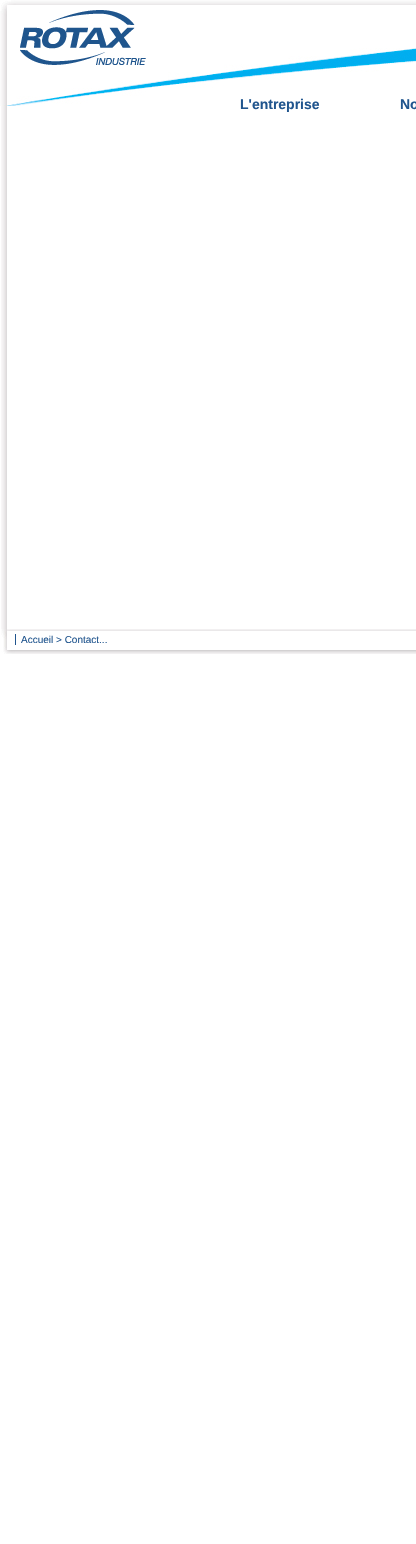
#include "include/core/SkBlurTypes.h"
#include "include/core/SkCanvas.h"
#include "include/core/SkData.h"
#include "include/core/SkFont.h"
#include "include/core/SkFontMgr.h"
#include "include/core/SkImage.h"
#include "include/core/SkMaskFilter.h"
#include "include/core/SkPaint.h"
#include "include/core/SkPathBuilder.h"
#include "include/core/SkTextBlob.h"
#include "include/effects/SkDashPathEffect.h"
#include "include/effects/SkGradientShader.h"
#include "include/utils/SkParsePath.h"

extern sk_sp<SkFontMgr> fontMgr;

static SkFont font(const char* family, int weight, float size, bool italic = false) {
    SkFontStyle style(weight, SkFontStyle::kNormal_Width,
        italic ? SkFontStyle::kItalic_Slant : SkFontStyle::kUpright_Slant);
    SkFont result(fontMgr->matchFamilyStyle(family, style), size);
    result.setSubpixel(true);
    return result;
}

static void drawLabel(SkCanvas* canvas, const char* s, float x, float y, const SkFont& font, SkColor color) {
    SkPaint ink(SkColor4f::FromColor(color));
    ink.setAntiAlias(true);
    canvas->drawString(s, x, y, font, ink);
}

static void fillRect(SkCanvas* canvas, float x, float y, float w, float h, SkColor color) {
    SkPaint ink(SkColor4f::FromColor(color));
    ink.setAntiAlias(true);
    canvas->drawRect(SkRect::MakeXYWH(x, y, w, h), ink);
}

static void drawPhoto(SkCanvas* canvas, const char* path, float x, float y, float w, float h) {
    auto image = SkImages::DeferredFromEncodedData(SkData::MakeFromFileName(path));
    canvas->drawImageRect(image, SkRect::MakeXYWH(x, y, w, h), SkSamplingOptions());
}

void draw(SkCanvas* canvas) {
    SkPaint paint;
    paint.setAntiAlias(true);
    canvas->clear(0xFFFFFFFF);
    drawPhoto(canvas, "assets/img1.png", 1, 106, 6, 523);
    drawPhoto(canvas, "assets/img2.png", 0, 0, 416, 106);
    drawPhoto(canvas, "assets/img3.png", 20, 10, 126, 55);
    SkFont font1 = font("Liberation Sans", 700, 14);
    drawLabel(canvas, "L'entreprise", 240, 109, font1, 0xFF20558E);
    drawLabel(canvas, "No", 400, 109, font1, 0xFF20558E);
    drawPhoto(canvas, "assets/img4.png", 1, 629, 415, 25);
    fillRect(canvas, 15, 634, 1, 11, 0xFF20558E);
    SkFont font2 = font("Liberation Sans", 400, 10);
    drawLabel(canvas, "Accueil > Contact...", 21, 643, font2, 0xFF20558E);
}
